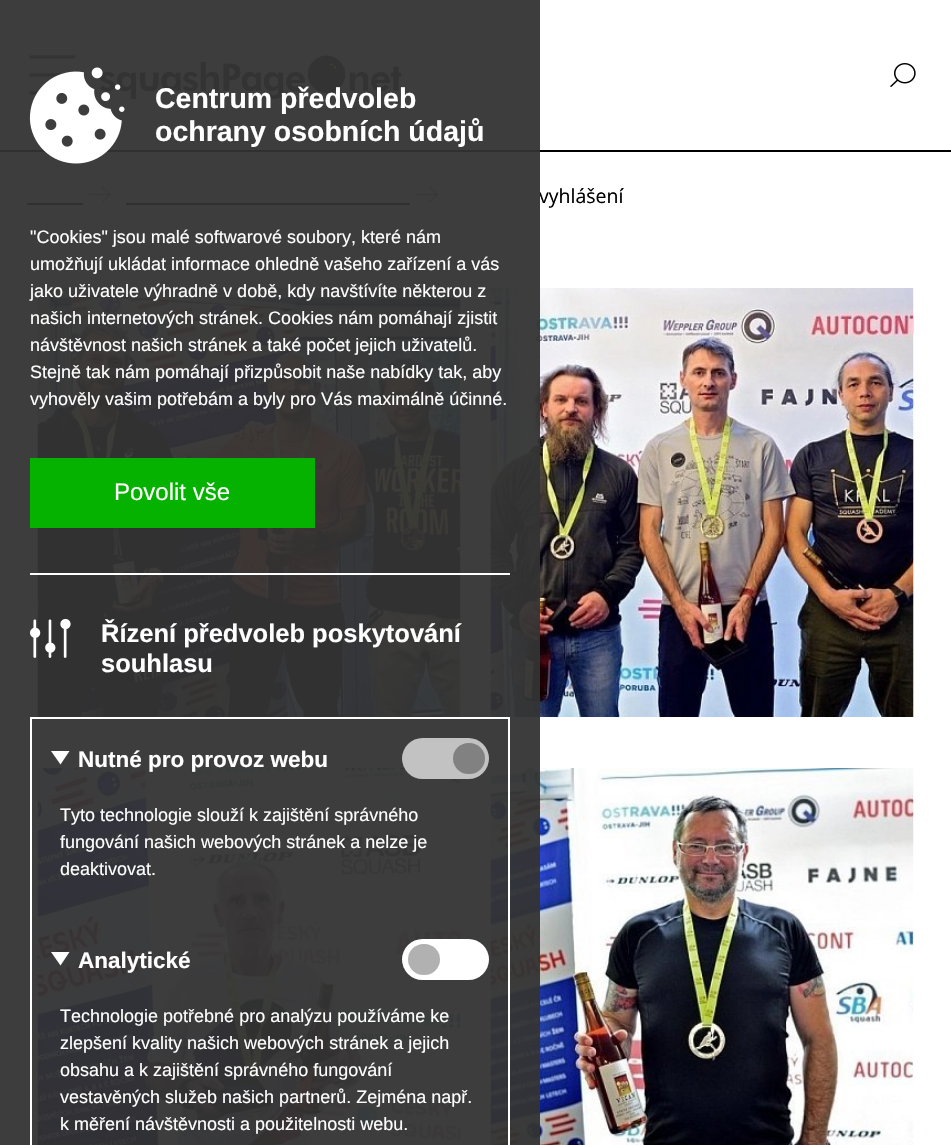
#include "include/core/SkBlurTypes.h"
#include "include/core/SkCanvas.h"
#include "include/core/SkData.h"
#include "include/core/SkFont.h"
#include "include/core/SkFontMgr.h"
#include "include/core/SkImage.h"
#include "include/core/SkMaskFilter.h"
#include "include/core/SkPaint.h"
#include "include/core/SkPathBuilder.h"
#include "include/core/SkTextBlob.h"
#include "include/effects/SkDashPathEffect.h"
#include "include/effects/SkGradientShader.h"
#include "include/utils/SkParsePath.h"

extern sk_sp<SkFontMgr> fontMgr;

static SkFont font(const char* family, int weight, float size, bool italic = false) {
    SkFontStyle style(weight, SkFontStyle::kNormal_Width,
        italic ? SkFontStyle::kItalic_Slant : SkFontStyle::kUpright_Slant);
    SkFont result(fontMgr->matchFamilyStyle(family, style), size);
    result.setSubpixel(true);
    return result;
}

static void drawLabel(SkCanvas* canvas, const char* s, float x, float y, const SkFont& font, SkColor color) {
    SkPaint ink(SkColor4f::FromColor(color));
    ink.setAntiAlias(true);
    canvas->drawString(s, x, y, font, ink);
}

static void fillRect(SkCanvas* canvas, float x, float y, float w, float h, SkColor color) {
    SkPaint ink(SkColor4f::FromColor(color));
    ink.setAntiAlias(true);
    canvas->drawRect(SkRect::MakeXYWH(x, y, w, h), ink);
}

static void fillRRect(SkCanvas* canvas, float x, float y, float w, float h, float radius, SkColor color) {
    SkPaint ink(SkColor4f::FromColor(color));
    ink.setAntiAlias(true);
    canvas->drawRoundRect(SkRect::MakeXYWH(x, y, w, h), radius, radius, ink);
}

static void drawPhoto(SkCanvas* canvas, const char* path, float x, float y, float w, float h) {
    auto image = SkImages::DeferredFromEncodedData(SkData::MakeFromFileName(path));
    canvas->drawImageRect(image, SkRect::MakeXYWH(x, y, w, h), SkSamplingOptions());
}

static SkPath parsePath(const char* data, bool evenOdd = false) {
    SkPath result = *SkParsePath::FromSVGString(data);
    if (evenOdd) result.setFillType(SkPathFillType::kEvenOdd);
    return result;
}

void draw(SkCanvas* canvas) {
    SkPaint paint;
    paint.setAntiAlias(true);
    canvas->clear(0xFFFFFFFF);
    fillRect(canvas, 0, 150, 951, 2, 0xFF000000);
    paint.setStroke(true);
    paint.setStrokeWidth(3.6f);
    paint.setStrokeCap(SkPaint::kRound_Cap);
    paint.setStrokeJoin(SkPaint::kRound_Join);
    paint.setColor(0xFF4B4B4B);
    canvas->drawPath(parsePath("M31 57H74M31 75H74M31 93H74"), paint);
    drawPhoto(canvas, "assets/img3.png", 100, 55, 302, 44);
    drawPhoto(canvas, "assets/img5.png", 88, 187, 23, 15);
    fillRect(canvas, 27, 203, 56, 2, 0xFF000000);
    drawPhoto(canvas, "assets/img5.png", 415, 187, 23, 15);
    fillRect(canvas, 126, 203, 284, 2, 0xFF000000);
    SkFont font1 = font("Open Sans", 400, 19.5f);
    drawLabel(canvas, "vyhlášení", 539, 203, font1, 0xFF000000);
    drawPhoto(canvas, "assets/img6.png", 37, 288, 424, 429);
    drawPhoto(canvas, "assets/img7.png", 490, 288, 424, 429);
    drawPhoto(canvas, "assets/img8.png", 37, 768, 424, 377);
    drawPhoto(canvas, "assets/img9.png", 490, 768, 424, 377);
    fillRect(canvas, 0, 0, 540, 1145, 0xF2333333);
    drawPhoto(canvas, "assets/img1.png", 29, 67, 96, 97);
    SkFont font2 = font("Liberation Sans", 700, 28.5f);
    drawLabel(canvas, "Centrum předvoleb", 155, 108, font2, 0xFFFFFFFF);
    drawLabel(canvas, "ochrany osobních údajů", 155, 141, font2, 0xFFFFFFFF);
    SkFont font3 = font("Liberation Sans", 400, 18);
    drawLabel(canvas, "\"Cookies\" jsou malé softwarové soubory, které nám", 30, 243, font3, 0xFFFFFFFF);
    drawLabel(canvas, "umožňují ukládat informace ohledně vašeho zařízení a vás", 30, 270, font3, 0xFFFFFFFF);
    drawLabel(canvas, "jako uživatele výhradně v době, kdy navštívíte některou z", 30, 297, font3, 0xFFFFFFFF);
    drawLabel(canvas, "našich internetových stránek. Cookies nám pomáhají zjistit", 30, 324, font3, 0xFFFFFFFF);
    drawLabel(canvas, "návštěvnost našich stránek a také počet jejich uživatelů.", 30, 351, font3, 0xFFFFFFFF);
    drawLabel(canvas, "Stejně tak nám pomáhají přizpůsobit naše nabídky tak, aby", 30, 378, font3, 0xFFFFFFFF);
    drawLabel(canvas, "vyhověly vašim potřebám a byly pro Vás maximálně účinné.", 30, 405, font3, 0xFFFFFFFF);
    fillRect(canvas, 30, 458, 285, 70, 0xFF06B200);
    SkFont font4 = font("Liberation Sans", 400, 24);
    drawLabel(canvas, "Povolit vše", 114, 500, font4, 0xFFFFFFFF);
    fillRect(canvas, 30, 573, 480, 2, 0xFFFFFFFF);
    drawPhoto(canvas, "assets/img2.png", 30, 618, 41, 40);
    SkFont font5 = font("Liberation Sans", 700, 25.5f);
    drawLabel(canvas, "Řízení předvoleb poskytování", 101, 642, font5, 0xFFFFFFFF);
    drawLabel(canvas, "souhlasu", 101, 672, font5, 0xFFFFFFFF);
    paint.setStrokeWidth(2);
    paint.setStrokeCap(SkPaint::kButt_Cap);
    paint.setStrokeJoin(SkPaint::kMiter_Join);
    paint.setColor(0xFFFFFFFF);
    canvas->drawRect(SkRect::MakeXYWH(31, 718, 478, 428), paint);
    paint.setStroke(false);
    canvas->drawPath(parsePath("M60.5 764.5L51 751H69.5Z"), paint);
    SkFont font6 = font("Liberation Sans", 700, 22.5f);
    drawLabel(canvas, "Nutné pro provoz webu", 78, 767, font6, 0xFFFFFFFF);
    fillRRect(canvas, 402, 738, 87, 41, 20.5f, 0xFFC2C2C2);
    fillRRect(canvas, 453, 743, 32, 31, 15.5f, 0xFF818181);
    drawLabel(canvas, "Tyto technologie slouží k zajištění správného", 60, 821, font3, 0xFFFFFFFF);
    drawLabel(canvas, "fungování našich webových stránek a nelze je", 60, 848, font3, 0xFFFFFFFF);
    drawLabel(canvas, "deaktivovat.", 60, 875, font3, 0xFFFFFFFF);
    canvas->drawPath(parsePath("M60.5 965.5L51 952H69.5Z"), paint);
    drawLabel(canvas, "Analytické", 78, 968, font6, 0xFFFFFFFF);
    fillRRect(canvas, 402, 939, 87, 41, 20.5f, 0xFFFFFFFF);
    fillRRect(canvas, 408, 944, 32, 31, 15.5f, 0xFFB1B1B1);
    drawLabel(canvas, "Technologie potřebné pro analýzu používáme ke", 60, 1022, font3, 0xFFFFFFFF);
    drawLabel(canvas, "zlepšení kvality našich webových stránek a jejich", 60, 1049, font3, 0xFFFFFFFF);
    drawLabel(canvas, "obsahu a k zajištění správného fungování", 60, 1076, font3, 0xFFFFFFFF);
    drawLabel(canvas, "vestavěných služeb našich partnerů. Zejména např.", 60, 1103, font3, 0xFFFFFFFF);
    drawLabel(canvas, "k měření návštěvnosti a použitelnosti webu.", 60, 1130, font3, 0xFFFFFFFF);
    drawPhoto(canvas, "assets/img4.png", 890, 63, 26, 24);
}
